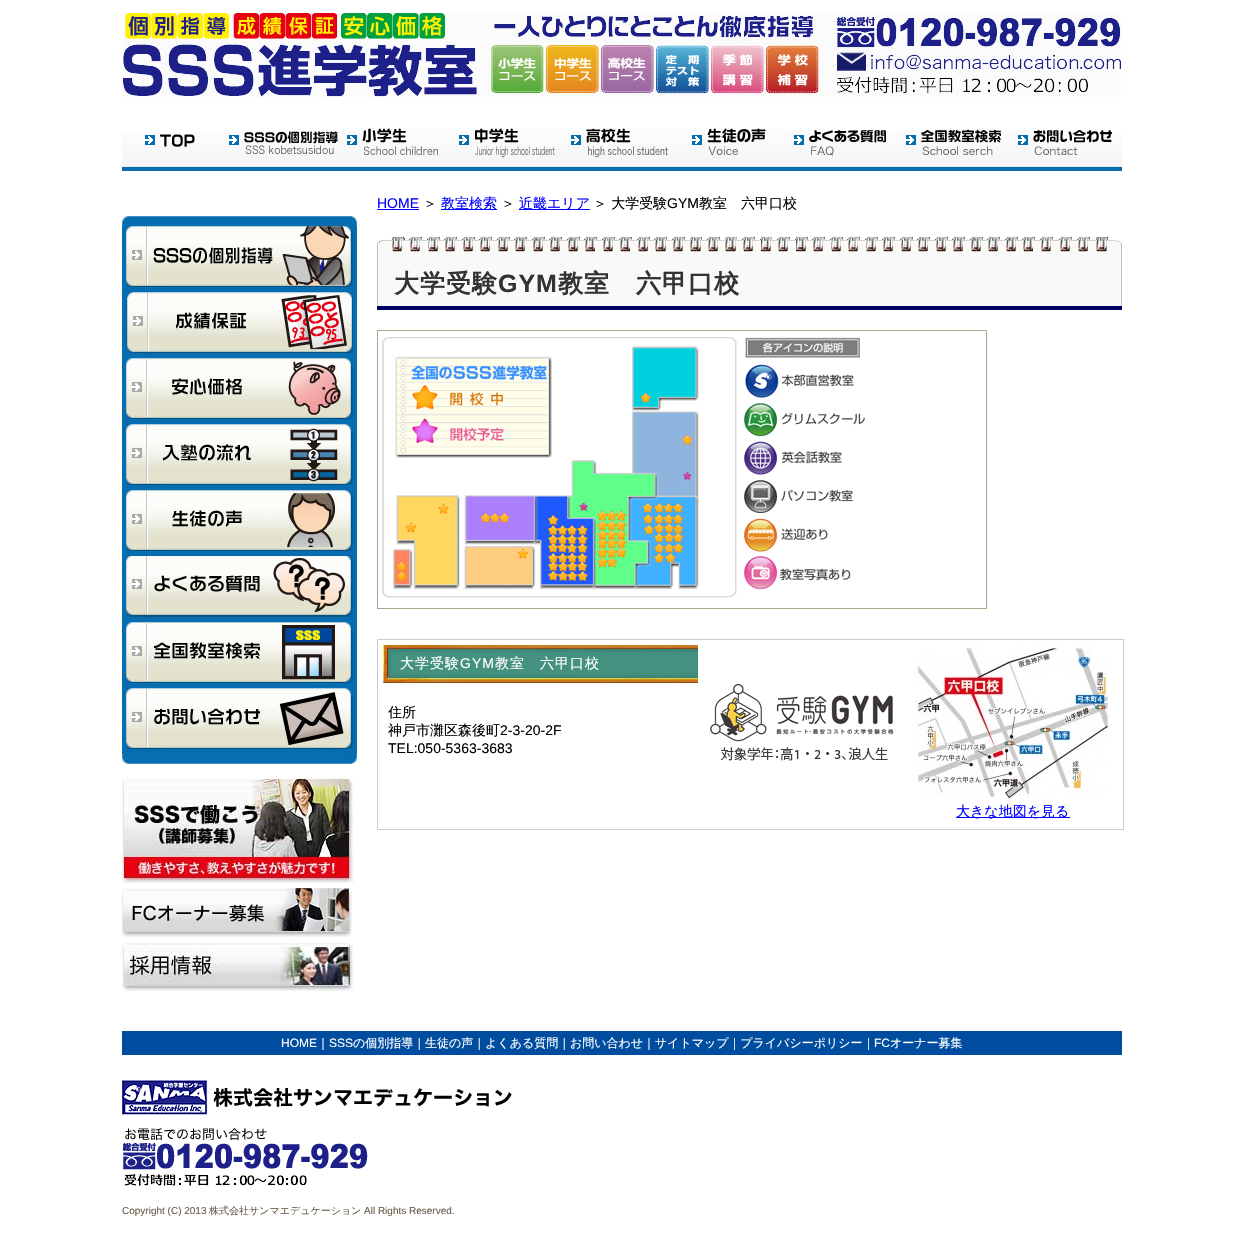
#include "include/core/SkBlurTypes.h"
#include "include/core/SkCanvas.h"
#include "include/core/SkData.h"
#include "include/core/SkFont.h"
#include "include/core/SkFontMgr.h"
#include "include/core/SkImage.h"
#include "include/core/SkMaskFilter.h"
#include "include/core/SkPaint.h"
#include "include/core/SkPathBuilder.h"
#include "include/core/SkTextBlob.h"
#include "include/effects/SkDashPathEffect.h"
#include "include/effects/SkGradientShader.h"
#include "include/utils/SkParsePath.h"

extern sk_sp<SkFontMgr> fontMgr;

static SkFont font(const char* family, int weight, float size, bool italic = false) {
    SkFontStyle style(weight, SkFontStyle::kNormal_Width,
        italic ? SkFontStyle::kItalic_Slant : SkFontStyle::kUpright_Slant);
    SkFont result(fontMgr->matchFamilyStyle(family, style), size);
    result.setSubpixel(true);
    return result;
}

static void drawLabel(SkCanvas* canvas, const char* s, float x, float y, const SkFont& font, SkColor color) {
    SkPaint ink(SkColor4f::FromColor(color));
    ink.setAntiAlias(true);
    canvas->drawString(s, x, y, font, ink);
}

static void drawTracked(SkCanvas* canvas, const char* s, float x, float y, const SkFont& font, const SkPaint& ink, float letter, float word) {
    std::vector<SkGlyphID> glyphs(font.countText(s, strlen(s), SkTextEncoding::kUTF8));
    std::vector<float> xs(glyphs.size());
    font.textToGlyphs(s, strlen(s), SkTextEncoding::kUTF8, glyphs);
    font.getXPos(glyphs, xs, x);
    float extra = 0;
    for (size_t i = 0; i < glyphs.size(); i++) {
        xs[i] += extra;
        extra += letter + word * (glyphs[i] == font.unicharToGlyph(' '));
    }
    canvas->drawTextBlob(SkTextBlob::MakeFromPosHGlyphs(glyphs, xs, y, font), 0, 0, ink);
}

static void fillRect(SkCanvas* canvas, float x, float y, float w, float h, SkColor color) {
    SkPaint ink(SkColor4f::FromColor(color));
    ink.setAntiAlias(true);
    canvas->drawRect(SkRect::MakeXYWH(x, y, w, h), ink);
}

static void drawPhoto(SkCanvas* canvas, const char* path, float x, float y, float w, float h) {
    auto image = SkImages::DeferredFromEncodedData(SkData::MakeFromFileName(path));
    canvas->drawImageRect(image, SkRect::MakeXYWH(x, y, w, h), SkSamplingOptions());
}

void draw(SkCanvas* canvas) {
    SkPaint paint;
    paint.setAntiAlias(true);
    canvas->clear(0xFFFFFFFF);
    drawPhoto(canvas, "assets/img1.png", 123, 13, 998, 84);
    drawPhoto(canvas, "assets/img2.png", 122, 134, 102, 37);
    drawPhoto(canvas, "assets/img3.png", 224, 131, 119, 40);
    drawPhoto(canvas, "assets/img4.png", 343, 128, 99, 43);
    drawPhoto(canvas, "assets/img5.png", 442, 128, 125, 43);
    drawPhoto(canvas, "assets/img6.png", 567, 128, 107, 43);
    drawPhoto(canvas, "assets/img7.png", 674, 128, 112, 43);
    drawPhoto(canvas, "assets/img8.png", 786, 130, 111, 41);
    drawPhoto(canvas, "assets/img9.png", 897, 129, 113, 42);
    drawPhoto(canvas, "assets/img10.png", 1010, 130, 112, 41);
    fillRect(canvas, 122, 226, 235, 528, 0xFF066EB0);
    drawPhoto(canvas, "assets/img11.png", 122, 216, 235, 10);
    drawPhoto(canvas, "assets/img12.png", 126, 226, 227, 61);
    drawPhoto(canvas, "assets/img13.png", 126, 292, 227, 61);
    drawPhoto(canvas, "assets/img14.png", 126, 358, 227, 61);
    drawPhoto(canvas, "assets/img15.png", 126, 424, 227, 61);
    drawPhoto(canvas, "assets/img16.png", 126, 490, 227, 61);
    drawPhoto(canvas, "assets/img17.png", 126, 556, 227, 61);
    drawPhoto(canvas, "assets/img18.png", 126, 622, 227, 61);
    drawPhoto(canvas, "assets/img19.png", 126, 688, 227, 61);
    drawPhoto(canvas, "assets/img20.png", 122, 754, 235, 10);
    drawPhoto(canvas, "assets/img21.png", 122, 779, 232, 104);
    drawPhoto(canvas, "assets/img22.png", 122, 888, 230, 49);
    drawPhoto(canvas, "assets/img23.png", 122, 942, 232, 49);
    SkFont font1 = font("Liberation Sans", 400, 14);
    drawLabel(canvas, "HOME", 377, 208, font1, 0xFF0000FF);
    fillRect(canvas, 377, 209, 42, 1, 0xFF0000FF);
    SkFont font2 = font("WenQuanYi Zen Hei", 500, 14);
    drawLabel(canvas, "＞", 423, 208, font2, 0xFF000000);
    fillRect(canvas, 441, 209, 56, 1, 0xFF0000FF);
    drawLabel(canvas, "教室検索", 441, 208, font2, 0xFF0000FF);
    drawLabel(canvas, "＞", 501, 208, font2, 0xFF000000);
    fillRect(canvas, 519, 209, 71, 1, 0xFF0000FF);
    drawLabel(canvas, "近畿エリア", 519, 208, font2, 0xFF0000FF);
    drawLabel(canvas, "＞ 大学受験", 593, 208, font2, 0xFF000000);
    drawLabel(canvas, "GYM", 667, 208, font1, 0xFF000000);
    drawLabel(canvas, "教室　六甲口校", 699, 208, font2, 0xFF000000);
    drawPhoto(canvas, "assets/img24.png", 377, 236, 745, 70);
    fillRect(canvas, 377, 306, 745, 4, 0xFF000066);
    SkFont font3 = font("WenQuanYi Zen Hei", 700, 25);
    paint.setColor(0xFF333333);
    drawTracked(canvas, "大学受験", 394, 292, font3, paint, 1, 0);
    SkFont font4 = font("Liberation Sans", 700, 25);
    drawTracked(canvas, "GYM", 498, 292, font4, paint, 1, 0);
    drawTracked(canvas, "教室　六甲口校", 558, 292, font3, paint, 1, 0);
    paint.setStroke(true);
    paint.setStrokeWidth(1);
    paint.setColor(0xFFAEA488);
    canvas->drawRect(SkRect::MakeXYWH(377.5f, 330.5f, 609, 278), paint);
    drawPhoto(canvas, "assets/img25.png", 382, 337, 483, 261);
    paint.setColor(0xFFCCCCCC);
    canvas->drawRect(SkRect::MakeXYWH(377.5f, 639.5f, 746, 190), paint);
    drawPhoto(canvas, "assets/img26.png", 383, 645, 315, 38);
    paint.setStroke(false);
    paint.setColor(0xFFFFFFFF);
    drawTracked(canvas, "大学受験", 400, 668, font2, paint, 1, 0);
    drawTracked(canvas, "GYM", 460, 668, font1, paint, 1, 0);
    drawTracked(canvas, "教室　六甲口校", 495, 668, font2, paint, 1, 0);
    drawLabel(canvas, "住所", 388, 717, font2, 0xFF000000);
    drawLabel(canvas, "神戸市灘区森後町", 388, 735, font2, 0xFF000000);
    drawLabel(canvas, "2-3-20-2F", 500, 735, font1, 0xFF000000);
    drawLabel(canvas, "TEL:050-5363-3683", 388, 753, font1, 0xFF000000);
    drawPhoto(canvas, "assets/img27.png", 710, 683, 184, 78);
    drawPhoto(canvas, "assets/img28.png", 915, 645, 196, 154);
    fillRect(canvas, 956, 817, 114, 1, 0xFF0000FF);
    drawLabel(canvas, "大きな地図を見る", 956, 816, font2, 0xFF0000FF);
    fillRect(canvas, 122, 1031, 1000, 24, 0xFF004D9F);
    SkFont font5 = font("Liberation Sans", 400, 12);
    drawLabel(canvas, "HOME", 281, 1047, font5, 0xFFFFFFFF);
    SkFont font6 = font("WenQuanYi Zen Hei", 500, 12);
    drawLabel(canvas, "｜", 317, 1047, font6, 0xFFFFFFFF);
    drawLabel(canvas, "SSS", 329, 1047, font5, 0xFFFFFFFF);
    drawLabel(canvas, "の個別指導｜生徒の声｜よくある質問｜お問い合わせ｜サイトマップ｜プライバシーポリシー｜", 353, 1047, font6, 0xFFFFFFFF);
    drawLabel(canvas, "FC", 874, 1047, font5, 0xFFFFFFFF);
    drawLabel(canvas, "オーナー募集", 890, 1047, font6, 0xFFFFFFFF);
    drawPhoto(canvas, "assets/img29.png", 122, 1080, 390, 106);
    SkFont font7 = font("Liberation Sans", 400, 10);
    drawLabel(canvas, "Copyright (C) 2013", 122, 1214, font7, 0xFF675D49);
    SkFont font8 = font("WenQuanYi Zen Hei", 500, 10);
    drawLabel(canvas, "株式会社サンマエデュケーション", 209, 1214, font8, 0xFF675D49);
    drawLabel(canvas, "All Rights Reserved.", 364, 1214, font7, 0xFF675D49);
}
